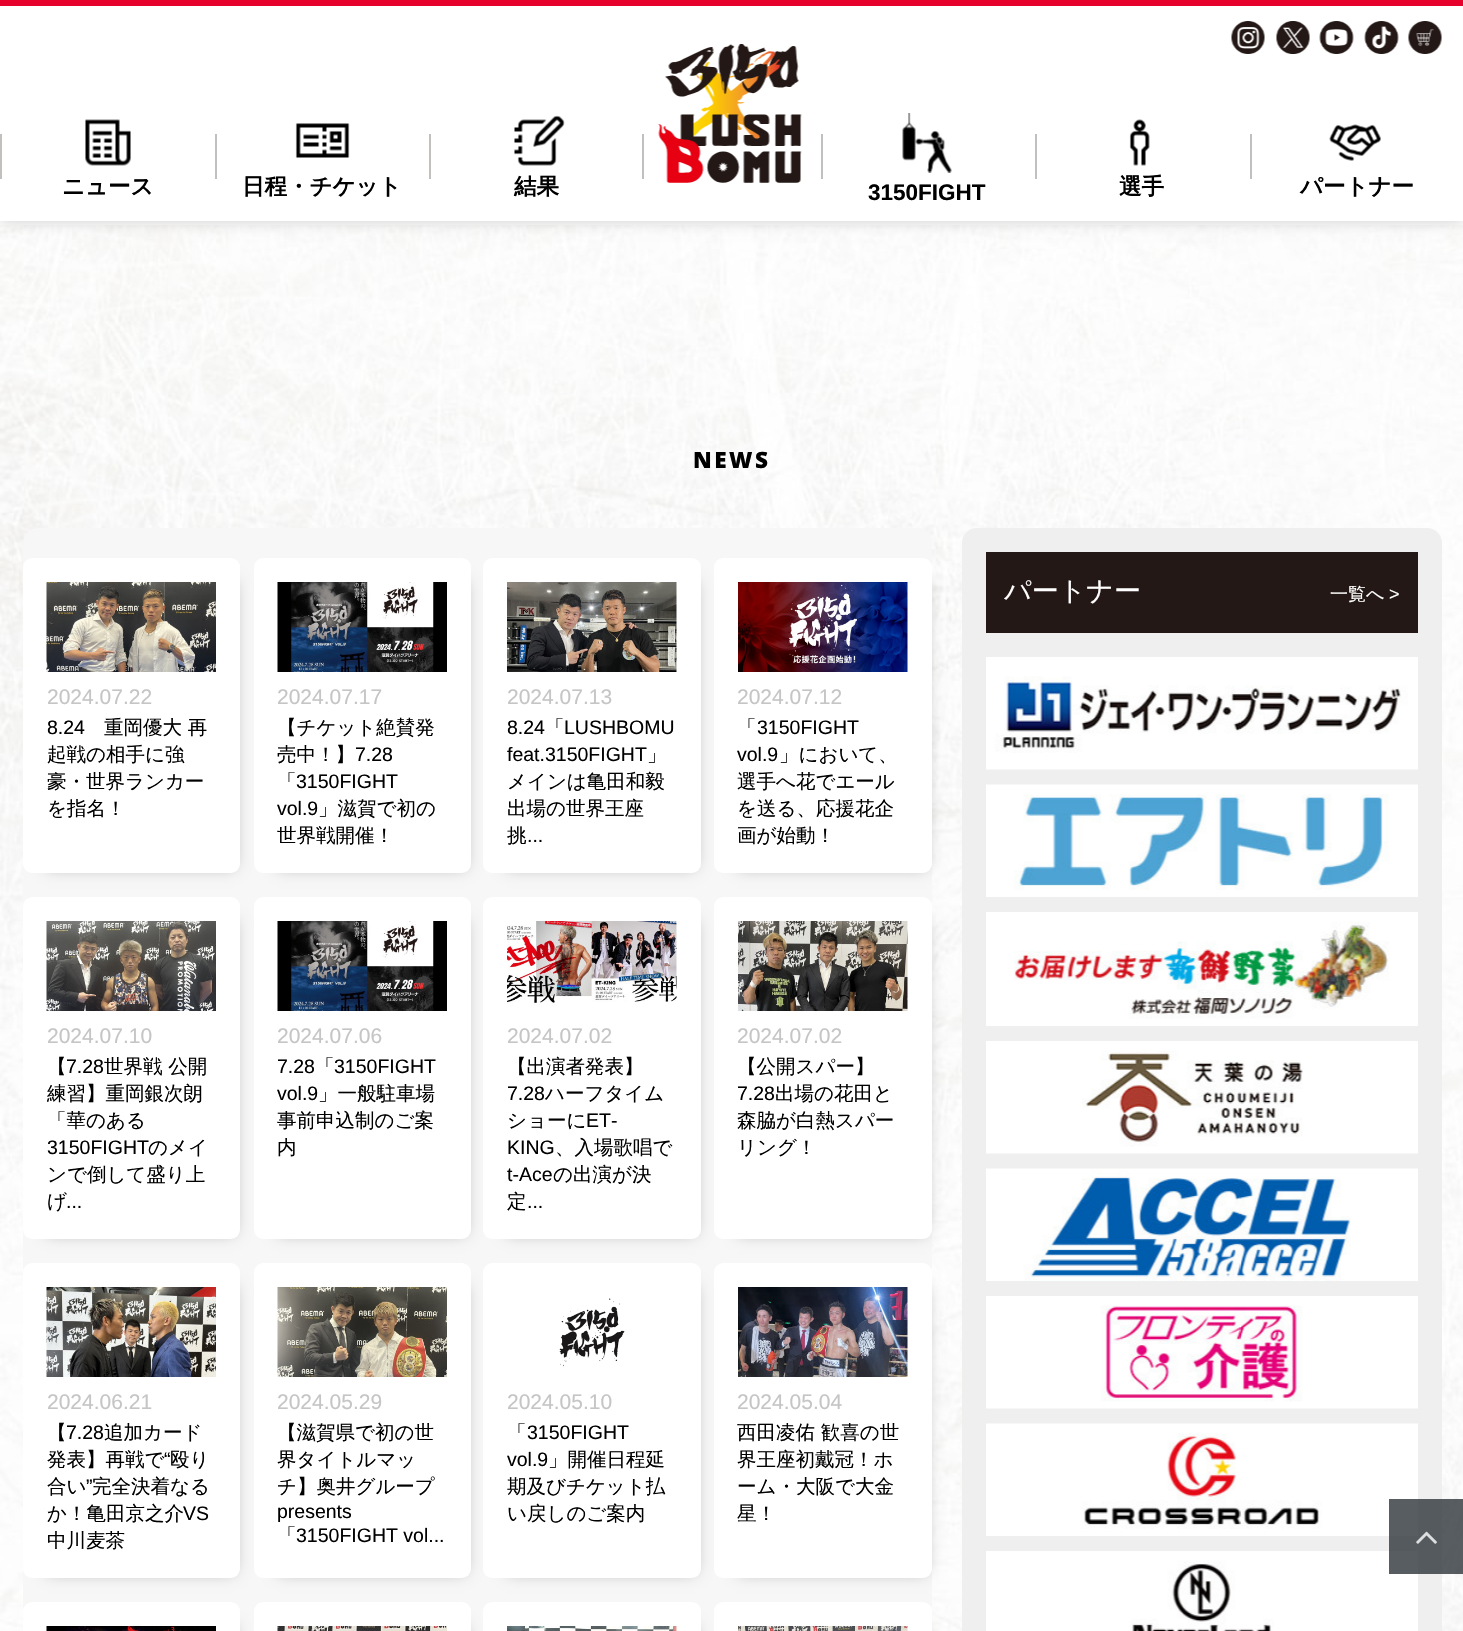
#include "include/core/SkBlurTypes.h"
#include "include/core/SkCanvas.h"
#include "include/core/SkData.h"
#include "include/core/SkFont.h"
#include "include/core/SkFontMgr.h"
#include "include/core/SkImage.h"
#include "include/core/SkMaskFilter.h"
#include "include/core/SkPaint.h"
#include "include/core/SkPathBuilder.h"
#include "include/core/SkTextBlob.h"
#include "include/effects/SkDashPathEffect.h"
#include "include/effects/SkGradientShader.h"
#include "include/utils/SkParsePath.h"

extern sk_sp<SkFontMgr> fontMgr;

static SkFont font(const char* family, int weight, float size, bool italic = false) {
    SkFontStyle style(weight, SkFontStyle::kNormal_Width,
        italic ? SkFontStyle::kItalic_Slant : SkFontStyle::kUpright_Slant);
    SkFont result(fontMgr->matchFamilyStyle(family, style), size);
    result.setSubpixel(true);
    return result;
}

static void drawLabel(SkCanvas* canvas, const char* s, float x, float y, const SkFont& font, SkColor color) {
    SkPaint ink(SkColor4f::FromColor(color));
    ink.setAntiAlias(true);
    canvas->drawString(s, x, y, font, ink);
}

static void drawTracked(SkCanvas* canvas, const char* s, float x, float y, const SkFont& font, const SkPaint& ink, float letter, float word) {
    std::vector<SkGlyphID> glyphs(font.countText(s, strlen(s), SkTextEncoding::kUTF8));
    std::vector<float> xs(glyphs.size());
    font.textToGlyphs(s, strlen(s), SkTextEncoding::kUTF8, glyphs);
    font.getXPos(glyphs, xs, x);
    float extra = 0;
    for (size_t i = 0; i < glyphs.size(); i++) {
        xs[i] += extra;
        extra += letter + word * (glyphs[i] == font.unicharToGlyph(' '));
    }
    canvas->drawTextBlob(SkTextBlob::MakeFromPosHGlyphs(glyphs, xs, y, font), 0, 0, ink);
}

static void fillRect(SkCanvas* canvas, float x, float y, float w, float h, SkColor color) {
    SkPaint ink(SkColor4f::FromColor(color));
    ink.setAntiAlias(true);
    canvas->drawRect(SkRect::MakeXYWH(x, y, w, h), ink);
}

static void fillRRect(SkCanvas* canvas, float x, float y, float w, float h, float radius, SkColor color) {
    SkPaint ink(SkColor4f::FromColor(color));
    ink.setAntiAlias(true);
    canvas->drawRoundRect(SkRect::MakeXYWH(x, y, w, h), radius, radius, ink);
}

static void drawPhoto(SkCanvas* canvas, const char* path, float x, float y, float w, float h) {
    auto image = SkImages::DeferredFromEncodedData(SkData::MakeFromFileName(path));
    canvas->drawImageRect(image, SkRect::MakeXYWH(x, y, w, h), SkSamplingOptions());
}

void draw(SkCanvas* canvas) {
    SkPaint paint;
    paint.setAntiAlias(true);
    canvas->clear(0xFFFFFFFF);
    drawPhoto(canvas, "assets/img13.png", 0, 225, 1463, 1406);
    paint.setColor(0x33000000);
    paint.setMaskFilter(SkMaskFilter::MakeBlur(kNormal_SkBlurStyle, 7.5f));
    canvas->drawRect(SkRect::MakeXYWH(0, 0, 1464, 221), paint);
    paint.setMaskFilter(nullptr);
    fillRect(canvas, 0, 6, 1463, 215, 0xFFFFFFFF);
    fillRect(canvas, 0, 0, 1463, 6, 0xFFE6002C);
    drawPhoto(canvas, "assets/img1.png", 1231, 21, 34, 33);
    drawPhoto(canvas, "assets/img2.png", 1276, 21, 34, 33);
    drawPhoto(canvas, "assets/img3.png", 1319, 21, 35, 33);
    drawPhoto(canvas, "assets/img4.png", 1364, 21, 35, 33);
    drawPhoto(canvas, "assets/img5.png", 1408, 21, 34, 33);
    drawPhoto(canvas, "assets/img6.png", 658, 44, 144, 139);
    fillRect(canvas, 0, 134, 2, 45, 0xFFC1C0BF);
    drawPhoto(canvas, "assets/img7.png", 85, 119, 46, 47);
    SkFont font1 = font("WenQuanYi Zen Hei", 700, 22.5f);
    drawLabel(canvas, "ニュース", 62, 194, font1, 0xFF000000);
    fillRect(canvas, 215, 134, 2, 45, 0xFFC1C0BF);
    drawPhoto(canvas, "assets/img8.png", 295, 123, 55, 35);
    drawLabel(canvas, "日程・チケット", 242, 194, font1, 0xFF000000);
    fillRect(canvas, 429, 134, 2, 45, 0xFFC1C0BF);
    fillRect(canvas, 642, 134, 2, 45, 0xFFC1C0BF);
    drawPhoto(canvas, "assets/img9.png", 514, 115, 51, 51);
    drawLabel(canvas, "結果", 514, 194, font1, 0xFF000000);
    fillRect(canvas, 821, 134, 2, 45, 0xFFC1C0BF);
    drawPhoto(canvas, "assets/img10.png", 902, 113, 50, 60);
    SkFont font2 = font("Liberation Sans", 700, 22.5f);
    drawLabel(canvas, "3150FIGHT", 868, 200, font2, 0xFF000000);
    fillRect(canvas, 1035, 134, 2, 45, 0xFFC1C0BF);
    drawPhoto(canvas, "assets/img11.png", 1129, 119, 21, 47);
    drawLabel(canvas, "選手", 1119, 194, font1, 0xFF000000);
    fillRect(canvas, 1250, 134, 2, 45, 0xFFC1C0BF);
    drawPhoto(canvas, "assets/img12.png", 1329, 124, 52, 37);
    drawLabel(canvas, "パートナー", 1300, 194, font1, 0xFF000000);
    SkFont font3 = font("Noto Sans", 100, 60);
    drawLabel(canvas, "ニ", 629, 422, font3, 0xFF000000);
    drawLabel(canvas, "ュース", 684, 422, font3, 0xFF000000);
    SkFont font4 = font("Noto Sans", 900, 22.5f);
    paint.setColor(0xFF000000);
    drawTracked(canvas, "NEWS", 693, 468, font4, paint, 2.5f, 0);
    fillRRect(canvas, 962, 528, 480, 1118, 15, 0xFFEFEFEF);
    fillRect(canvas, 986, 552, 432, 81, 0xFF241816);
    SkFont font5 = font("WenQuanYi Zen Hei", 500, 27);
    drawLabel(canvas, "パートナー", 1004, 600, font5, 0xFFFFFFFF);
    SkFont font6 = font("WenQuanYi Zen Hei", 500, 18);
    drawLabel(canvas, "一覧へ", 1330, 600, font6, 0xFFFFFFFF);
    SkFont font7 = font("Liberation Sans", 400, 18);
    drawLabel(canvas, ">", 1389, 600, font7, 0xFFFFFFFF);
    drawPhoto(canvas, "assets/img14.png", 986, 657, 432, 113);
    drawPhoto(canvas, "assets/img15.png", 986, 784, 432, 113);
    drawPhoto(canvas, "assets/img16.png", 986, 912, 432, 114);
    drawPhoto(canvas, "assets/img17.png", 986, 1041, 432, 113);
    drawPhoto(canvas, "assets/img18.png", 986, 1168, 432, 113);
    drawPhoto(canvas, "assets/img19.png", 986, 1296, 432, 113);
    drawPhoto(canvas, "assets/img20.png", 986, 1423, 432, 113);
    drawPhoto(canvas, "assets/img21.png", 986, 1551, 432, 80);
    fillRRect(canvas, 23, 528, 909, 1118, 15, 0xFFF7F7F7);
    paint.setColor(0x59000000);
    paint.setMaskFilter(SkMaskFilter::MakeBlur(kNormal_SkBlurStyle, 7.5f));
    canvas->drawRect(SkRect::MakeXYWH(47, 582, 187, 285), paint);
    paint.setMaskFilter(nullptr);
    fillRRect(canvas, 23, 558, 217, 315, 9, 0xFFFFFFFF);
    drawPhoto(canvas, "assets/img22.png", 46, 582, 170, 90);
    SkFont font8 = font("Liberation Sans", 400, 21);
    drawLabel(canvas, "2024.07.22", 47, 704, font8, 0xFFC5C5C5);
    SkFont font9 = font("Liberation Sans", 400, 19.5f);
    drawLabel(canvas, "8.24", 47, 734, font9, 0xFF000000);
    SkFont font10 = font("WenQuanYi Zen Hei", 500, 19.5f);
    drawLabel(canvas, "重岡優大 再", 104, 734, font10, 0xFF000000);
    drawLabel(canvas, "起戦の相手に強", 47, 761, font10, 0xFF000000);
    drawLabel(canvas, "豪・世界ランカー", 47, 788, font10, 0xFF000000);
    drawLabel(canvas, "を指名！", 47, 815, font10, 0xFF000000);
    paint.setMaskFilter(SkMaskFilter::MakeBlur(kNormal_SkBlurStyle, 7.5f));
    canvas->drawRect(SkRect::MakeXYWH(278, 582, 187, 285), paint);
    paint.setMaskFilter(nullptr);
    fillRRect(canvas, 254, 558, 217, 315, 9, 0xFFFFFFFF);
    drawPhoto(canvas, "assets/img23.png", 277, 582, 170, 90);
    drawLabel(canvas, "2024.07.17", 277, 704, font8, 0xFFC5C5C5);
    drawLabel(canvas, "【チケット絶賛発", 277, 734, font10, 0xFF000000);
    drawLabel(canvas, "売中！】", 277, 761, font10, 0xFF000000);
    drawLabel(canvas, "7.28", 355, 761, font9, 0xFF000000);
    drawLabel(canvas, "「", 277, 788, font10, 0xFF000000);
    drawLabel(canvas, "3150FIGHT", 296, 788, font9, 0xFF000000);
    drawLabel(canvas, "vol.9", 277, 815, font9, 0xFF000000);
    drawLabel(canvas, "」滋賀で初の", 318, 815, font10, 0xFF000000);
    drawLabel(canvas, "世界戦開催！", 277, 842, font10, 0xFF000000);
    paint.setMaskFilter(SkMaskFilter::MakeBlur(kNormal_SkBlurStyle, 7.5f));
    canvas->drawRect(SkRect::MakeXYWH(507, 582, 188, 285), paint);
    paint.setMaskFilter(nullptr);
    fillRRect(canvas, 483, 558, 218, 315, 9, 0xFFFFFFFF);
    drawPhoto(canvas, "assets/img24.png", 507, 582, 170, 90);
    drawLabel(canvas, "2024.07.13", 507, 704, font8, 0xFFC5C5C5);
    drawLabel(canvas, "8.24", 507, 734, font9, 0xFF000000);
    drawLabel(canvas, "「", 545, 734, font10, 0xFF000000);
    drawLabel(canvas, "LUSHBOMU", 564, 734, font9, 0xFF000000);
    drawLabel(canvas, "feat.3150FIGHT", 507, 761, font9, 0xFF000000);
    drawLabel(canvas, "」", 647, 761, font10, 0xFF000000);
    drawLabel(canvas, "メインは亀田和毅", 507, 788, font10, 0xFF000000);
    drawLabel(canvas, "出場の世界王座", 507, 815, font10, 0xFF000000);
    drawLabel(canvas, "挑", 507, 842, font10, 0xFF000000);
    drawLabel(canvas, "...", 527, 842, font9, 0xFF000000);
    paint.setMaskFilter(SkMaskFilter::MakeBlur(kNormal_SkBlurStyle, 7.5f));
    canvas->drawRect(SkRect::MakeXYWH(738, 582, 188, 285), paint);
    paint.setMaskFilter(nullptr);
    fillRRect(canvas, 714, 558, 218, 315, 9, 0xFFFFFFFF);
    drawPhoto(canvas, "assets/img25.png", 738, 582, 170, 90);
    drawLabel(canvas, "2024.07.12", 737, 704, font8, 0xFFC5C5C5);
    drawLabel(canvas, "「", 737, 734, font10, 0xFF000000);
    drawLabel(canvas, "3150FIGHT", 757, 734, font9, 0xFF000000);
    drawLabel(canvas, "vol.9", 737, 761, font9, 0xFF000000);
    drawLabel(canvas, "」において、", 779, 761, font10, 0xFF000000);
    drawLabel(canvas, "選手へ花でエール", 737, 788, font10, 0xFF000000);
    drawLabel(canvas, "を送る、応援花企", 737, 815, font10, 0xFF000000);
    drawLabel(canvas, "画が始動！", 737, 842, font10, 0xFF000000);
    paint.setMaskFilter(SkMaskFilter::MakeBlur(kNormal_SkBlurStyle, 7.5f));
    canvas->drawRect(SkRect::MakeXYWH(47, 921, 187, 312), paint);
    paint.setMaskFilter(nullptr);
    fillRRect(canvas, 23, 897, 217, 342, 9, 0xFFFFFFFF);
    drawPhoto(canvas, "assets/img26.png", 46, 921, 170, 90);
    drawLabel(canvas, "2024.07.10", 47, 1043, font8, 0xFFC5C5C5);
    drawLabel(canvas, "【", 47, 1073, font10, 0xFF000000);
    drawLabel(canvas, "7.28", 66, 1073, font9, 0xFF000000);
    drawLabel(canvas, "世界戦 公開", 104, 1073, font10, 0xFF000000);
    drawLabel(canvas, "練習】重岡銀次朗", 47, 1100, font10, 0xFF000000);
    drawLabel(canvas, "「華のある", 47, 1127, font10, 0xFF000000);
    drawLabel(canvas, "3150FIGHT", 47, 1154, font9, 0xFF000000);
    drawLabel(canvas, "のメイ", 148, 1154, font10, 0xFF000000);
    drawLabel(canvas, "ンで倒して盛り上", 47, 1181, font10, 0xFF000000);
    drawLabel(canvas, "げ", 47, 1208, font10, 0xFF000000);
    drawLabel(canvas, "...", 66, 1208, font9, 0xFF000000);
    paint.setMaskFilter(SkMaskFilter::MakeBlur(kNormal_SkBlurStyle, 7.5f));
    canvas->drawRect(SkRect::MakeXYWH(278, 921, 187, 312), paint);
    paint.setMaskFilter(nullptr);
    fillRRect(canvas, 254, 897, 217, 342, 9, 0xFFFFFFFF);
    drawPhoto(canvas, "assets/img23.png", 277, 921, 170, 90);
    drawLabel(canvas, "2024.07.06", 277, 1043, font8, 0xFFC5C5C5);
    drawLabel(canvas, "7.28", 277, 1073, font9, 0xFF000000);
    drawLabel(canvas, "「", 315, 1073, font10, 0xFF000000);
    drawLabel(canvas, "3150FIGHT", 334, 1073, font9, 0xFF000000);
    drawLabel(canvas, "vol.9", 277, 1100, font9, 0xFF000000);
    drawLabel(canvas, "」一般駐車場", 318, 1100, font10, 0xFF000000);
    drawLabel(canvas, "事前申込制のご案", 277, 1127, font10, 0xFF000000);
    drawLabel(canvas, "内", 277, 1154, font10, 0xFF000000);
    paint.setMaskFilter(SkMaskFilter::MakeBlur(kNormal_SkBlurStyle, 7.5f));
    canvas->drawRect(SkRect::MakeXYWH(507, 921, 188, 312), paint);
    paint.setMaskFilter(nullptr);
    fillRRect(canvas, 483, 897, 218, 342, 9, 0xFFFFFFFF);
    drawPhoto(canvas, "assets/img27.png", 507, 921, 170, 85);
    drawLabel(canvas, "2024.07.02", 507, 1043, font8, 0xFFC5C5C5);
    drawLabel(canvas, "【出演者発表】", 507, 1073, font10, 0xFF000000);
    drawLabel(canvas, "7.28", 507, 1100, font9, 0xFF000000);
    drawLabel(canvas, "ハーフタイム", 545, 1100, font10, 0xFF000000);
    drawLabel(canvas, "ショーに", 507, 1127, font10, 0xFF000000);
    drawLabel(canvas, "ET-", 586, 1127, font9, 0xFF000000);
    drawLabel(canvas, "KING", 507, 1154, font9, 0xFF000000);
    drawLabel(canvas, "、入場歌唱で", 555, 1154, font10, 0xFF000000);
    drawLabel(canvas, "t-Ace", 507, 1181, font9, 0xFF000000);
    drawLabel(canvas, "の出演が決", 553, 1181, font10, 0xFF000000);
    drawLabel(canvas, "定", 507, 1208, font10, 0xFF000000);
    drawLabel(canvas, "...", 527, 1208, font9, 0xFF000000);
    paint.setMaskFilter(SkMaskFilter::MakeBlur(kNormal_SkBlurStyle, 7.5f));
    canvas->drawRect(SkRect::MakeXYWH(738, 921, 188, 312), paint);
    paint.setMaskFilter(nullptr);
    fillRRect(canvas, 714, 897, 218, 342, 9, 0xFFFFFFFF);
    drawPhoto(canvas, "assets/img28.png", 738, 921, 170, 90);
    drawLabel(canvas, "2024.07.02", 737, 1043, font8, 0xFFC5C5C5);
    drawLabel(canvas, "【公開スパー】", 737, 1073, font10, 0xFF000000);
    drawLabel(canvas, "7.28", 737, 1100, font9, 0xFF000000);
    drawLabel(canvas, "出場の花田と", 775, 1100, font10, 0xFF000000);
    drawLabel(canvas, "森脇が白熱スパー", 737, 1127, font10, 0xFF000000);
    drawLabel(canvas, "リング！", 737, 1154, font10, 0xFF000000);
    paint.setMaskFilter(SkMaskFilter::MakeBlur(kNormal_SkBlurStyle, 7.5f));
    canvas->drawRect(SkRect::MakeXYWH(47, 1287, 187, 285), paint);
    paint.setMaskFilter(nullptr);
    fillRRect(canvas, 23, 1263, 217, 315, 9, 0xFFFFFFFF);
    drawPhoto(canvas, "assets/img29.png", 46, 1287, 170, 90);
    drawLabel(canvas, "2024.06.21", 47, 1409, font8, 0xFFC5C5C5);
    drawLabel(canvas, "【", 47, 1439, font10, 0xFF000000);
    drawLabel(canvas, "7.28", 66, 1439, font9, 0xFF000000);
    drawLabel(canvas, "追加カード", 104, 1439, font10, 0xFF000000);
    drawLabel(canvas, "発表】再戦で", 47, 1466, font10, 0xFF000000);
    drawLabel(canvas, "“", 164, 1466, font9, 0xFF000000);
    drawLabel(canvas, "殴り", 170, 1466, font10, 0xFF000000);
    drawLabel(canvas, "合い", 47, 1493, font10, 0xFF000000);
    drawLabel(canvas, "”", 86, 1493, font9, 0xFF000000);
    drawLabel(canvas, "完全決着なる", 92, 1493, font10, 0xFF000000);
    drawLabel(canvas, "か！亀田京之介", 47, 1520, font10, 0xFF000000);
    drawLabel(canvas, "VS", 183, 1520, font9, 0xFF000000);
    drawLabel(canvas, "中川麦茶", 47, 1547, font10, 0xFF000000);
    paint.setMaskFilter(SkMaskFilter::MakeBlur(kNormal_SkBlurStyle, 7.5f));
    canvas->drawRect(SkRect::MakeXYWH(278, 1287, 187, 285), paint);
    paint.setMaskFilter(nullptr);
    fillRRect(canvas, 254, 1263, 217, 315, 9, 0xFFFFFFFF);
    drawPhoto(canvas, "assets/img30.png", 277, 1287, 170, 90);
    drawLabel(canvas, "2024.05.29", 277, 1409, font8, 0xFFC5C5C5);
    drawLabel(canvas, "【滋賀県で初の世", 277, 1439, font10, 0xFF000000);
    drawLabel(canvas, "界タイトルマッ", 277, 1466, font10, 0xFF000000);
    drawLabel(canvas, "チ】奥井グループ", 277, 1493, font10, 0xFF000000);
    drawLabel(canvas, "presents", 277, 1518, font9, 0xFF000000);
    drawLabel(canvas, "「", 277, 1542, font10, 0xFF000000);
    drawLabel(canvas, "3150FIGHT vol...", 296, 1542, font9, 0xFF000000);
    paint.setMaskFilter(SkMaskFilter::MakeBlur(kNormal_SkBlurStyle, 7.5f));
    canvas->drawRect(SkRect::MakeXYWH(507, 1287, 188, 285), paint);
    paint.setMaskFilter(nullptr);
    fillRRect(canvas, 483, 1263, 218, 315, 9, 0xFFFFFFFF);
    drawPhoto(canvas, "assets/img31.png", 559, 1298, 66, 69);
    drawLabel(canvas, "2024.05.10", 507, 1409, font8, 0xFFC5C5C5);
    drawLabel(canvas, "「", 507, 1439, font10, 0xFF000000);
    drawLabel(canvas, "3150FIGHT", 527, 1439, font9, 0xFF000000);
    drawLabel(canvas, "vol.9", 507, 1466, font9, 0xFF000000);
    drawLabel(canvas, "」開催日程延", 548, 1466, font10, 0xFF000000);
    drawLabel(canvas, "期及びチケット払", 507, 1493, font10, 0xFF000000);
    drawLabel(canvas, "い戻しのご案内", 507, 1520, font10, 0xFF000000);
    paint.setMaskFilter(SkMaskFilter::MakeBlur(kNormal_SkBlurStyle, 7.5f));
    canvas->drawRect(SkRect::MakeXYWH(738, 1287, 188, 285), paint);
    paint.setMaskFilter(nullptr);
    fillRRect(canvas, 714, 1263, 218, 315, 9, 0xFFFFFFFF);
    drawPhoto(canvas, "assets/img32.png", 738, 1287, 170, 90);
    drawLabel(canvas, "2024.05.04", 737, 1409, font8, 0xFFC5C5C5);
    drawLabel(canvas, "西田凌佑 歓喜の世", 737, 1439, font10, 0xFF000000);
    drawLabel(canvas, "界王座初戴冠！ホ", 737, 1466, font10, 0xFF000000);
    drawLabel(canvas, "ーム・大阪で大金", 737, 1493, font10, 0xFF000000);
    drawLabel(canvas, "星！", 737, 1520, font10, 0xFF000000);
    paint.setMaskFilter(SkMaskFilter::MakeBlur(kNormal_SkBlurStyle, 7.5f));
    canvas->drawRect(SkRect::MakeXYWH(47, 1626, 187, 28), paint);
    paint.setMaskFilter(nullptr);
    fillRRect(canvas, 23, 1602, 217, 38, 9, 0xFFFFFFFF);
    drawPhoto(canvas, "assets/img33.png", 46, 1626, 170, 5);
    paint.setMaskFilter(SkMaskFilter::MakeBlur(kNormal_SkBlurStyle, 7.5f));
    canvas->drawRect(SkRect::MakeXYWH(278, 1626, 187, 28), paint);
    paint.setMaskFilter(nullptr);
    fillRRect(canvas, 254, 1602, 217, 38, 9, 0xFFFFFFFF);
    drawPhoto(canvas, "assets/img34.png", 277, 1626, 170, 5);
    paint.setMaskFilter(SkMaskFilter::MakeBlur(kNormal_SkBlurStyle, 7.5f));
    canvas->drawRect(SkRect::MakeXYWH(507, 1626, 188, 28), paint);
    paint.setMaskFilter(nullptr);
    fillRRect(canvas, 483, 1602, 218, 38, 9, 0xFFFFFFFF);
    drawPhoto(canvas, "assets/img35.png", 507, 1626, 170, 5);
    paint.setMaskFilter(SkMaskFilter::MakeBlur(kNormal_SkBlurStyle, 7.5f));
    canvas->drawRect(SkRect::MakeXYWH(738, 1626, 188, 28), paint);
    paint.setMaskFilter(nullptr);
    fillRRect(canvas, 714, 1602, 218, 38, 9, 0xFFFFFFFF);
    drawPhoto(canvas, "assets/img36.png", 738, 1626, 170, 5);
    fillRect(canvas, 1389, 1499, 74, 75, 0xCC2D353A);
    drawPhoto(canvas, "assets/img37.png", 1416, 1531, 21, 13);
}
